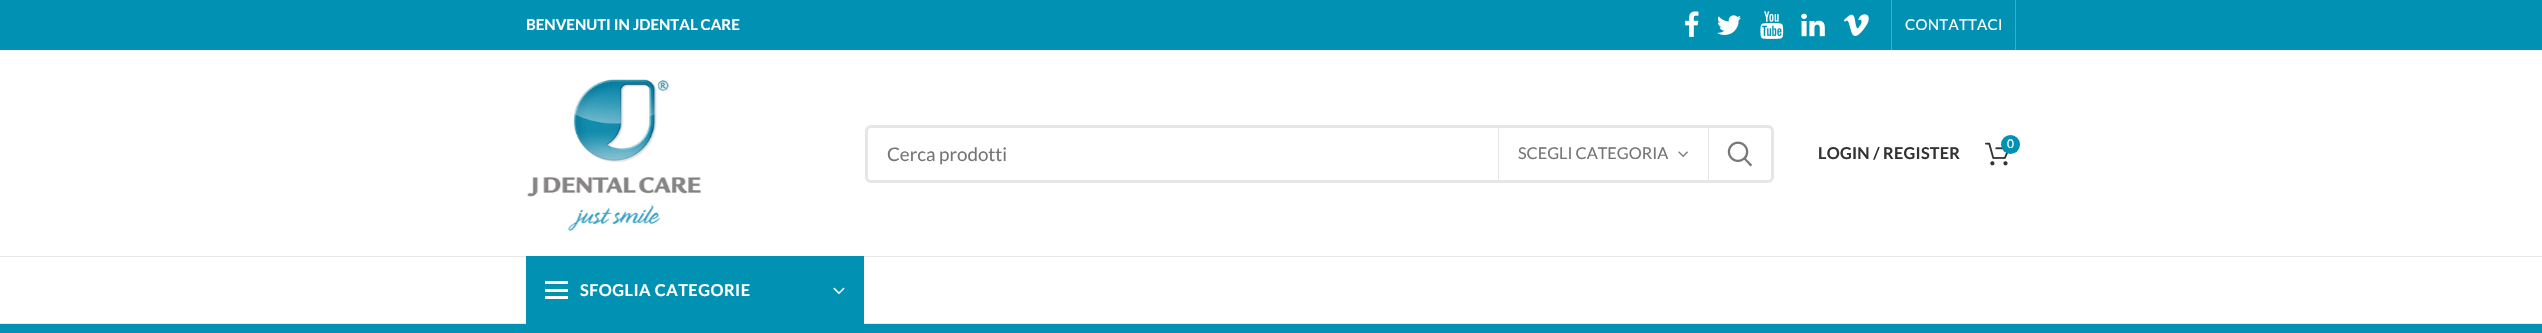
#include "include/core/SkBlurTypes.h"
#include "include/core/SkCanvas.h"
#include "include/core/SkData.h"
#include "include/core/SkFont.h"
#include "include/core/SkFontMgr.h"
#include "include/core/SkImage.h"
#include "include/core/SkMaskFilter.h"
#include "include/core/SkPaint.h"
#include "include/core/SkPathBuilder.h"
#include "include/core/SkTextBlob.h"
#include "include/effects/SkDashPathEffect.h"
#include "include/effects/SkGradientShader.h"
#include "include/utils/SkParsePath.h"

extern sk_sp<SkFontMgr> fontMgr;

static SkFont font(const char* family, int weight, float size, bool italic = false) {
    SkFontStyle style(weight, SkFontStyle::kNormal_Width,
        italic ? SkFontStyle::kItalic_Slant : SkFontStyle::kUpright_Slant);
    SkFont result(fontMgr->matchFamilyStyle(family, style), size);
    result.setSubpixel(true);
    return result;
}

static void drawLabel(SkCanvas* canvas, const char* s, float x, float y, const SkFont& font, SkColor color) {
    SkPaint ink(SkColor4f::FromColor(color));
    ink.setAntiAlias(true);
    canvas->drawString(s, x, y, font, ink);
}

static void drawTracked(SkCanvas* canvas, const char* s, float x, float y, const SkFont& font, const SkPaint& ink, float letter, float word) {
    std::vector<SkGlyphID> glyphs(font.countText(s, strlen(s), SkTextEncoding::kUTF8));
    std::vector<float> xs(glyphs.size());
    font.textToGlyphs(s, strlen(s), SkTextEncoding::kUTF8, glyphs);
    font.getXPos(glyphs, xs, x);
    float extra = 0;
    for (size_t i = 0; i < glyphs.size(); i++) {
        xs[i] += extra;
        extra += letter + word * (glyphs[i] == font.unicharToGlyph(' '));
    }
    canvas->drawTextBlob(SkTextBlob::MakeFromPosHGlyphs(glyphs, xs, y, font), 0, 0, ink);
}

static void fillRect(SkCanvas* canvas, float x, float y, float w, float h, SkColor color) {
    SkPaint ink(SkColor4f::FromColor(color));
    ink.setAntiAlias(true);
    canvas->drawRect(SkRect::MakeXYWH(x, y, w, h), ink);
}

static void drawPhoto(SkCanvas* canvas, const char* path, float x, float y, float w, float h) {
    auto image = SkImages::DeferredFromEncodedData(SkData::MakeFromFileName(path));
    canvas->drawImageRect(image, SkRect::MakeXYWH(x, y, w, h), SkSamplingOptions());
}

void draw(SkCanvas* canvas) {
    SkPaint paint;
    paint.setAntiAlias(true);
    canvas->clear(0xFFFFFFFF);
    fillRect(canvas, 0, 0, 2542, 50, 0xFF0091B3);
    SkFont font1 = font("Lato", 700, 15);
    drawLabel(canvas, "BENVENUTI IN JDENTAL CARE", 526, 30, font1, 0xFFFFFFFF);
    drawPhoto(canvas, "assets/img1.png", 1685, 11, 14, 26);
    drawPhoto(canvas, "assets/img2.png", 1717, 15, 24, 20);
    drawPhoto(canvas, "assets/img3.png", 1760, 11, 24, 28);
    drawPhoto(canvas, "assets/img4.png", 1801, 13, 24, 24);
    drawPhoto(canvas, "assets/img5.png", 1843, 14, 26, 22);
    fillRect(canvas, 1891, 0, 1, 50, 0xFF40ADC6);
    SkFont font2 = font("Lato", 400, 15);
    paint.setColor(0xFFFFFFFF);
    drawTracked(canvas, "CONTATTACI", 1905, 30, font2, paint, 0.25f, 0);
    fillRect(canvas, 2015, 0, 1, 50, 0xFF40ADC6);
    fillRect(canvas, 0, 256, 2542, 1, 0xFFE8E8E8);
    drawPhoto(canvas, "assets/img6.png", 527, 79, 175, 152);
    paint.setStroke(true);
    paint.setStrokeWidth(3);
    paint.setColor(0xFFE6E6E6);
    canvas->drawRoundRect(SkRect::MakeXYWH(866.5f, 126.5f, 906, 55), 4.5f, 4.5f, paint);
    SkFont font3 = font("Lato", 400, 18.75f);
    drawLabel(canvas, "Cerca prodotti", 887, 161, font3, 0xFF757575);
    fillRect(canvas, 1708, 128, 1, 52, 0xFFE6E6E6);
    fillRect(canvas, 1498, 128, 1, 52, 0xFFE6E6E6);
    SkFont font4 = font("Lato", 400, 16.25f);
    drawLabel(canvas, "SCEGLI CATEGORIA", 1518, 159, font4, 0xFF757575);
    drawPhoto(canvas, "assets/img7.png", 1678, 151, 10, 6);
    drawPhoto(canvas, "assets/img8.png", 1727, 141, 26, 26);
    drawPhoto(canvas, "assets/img9.png", 1985, 142, 23, 24);
    paint.setStroke(false);
    paint.setColor(0xFF0091B3);
    canvas->drawCircle(2010.5f, 144.5f, 9.5f, paint);
    SkFont font5 = font("Lato", 400, 12);
    drawLabel(canvas, "0", 2007, 148, font5, 0xFFFFFFFF);
    SkFont font6 = font("Lato", 700, 16.25f);
    paint.setColor(0xFF333333);
    drawTracked(canvas, "LOGIN / REGISTER", 1818, 159, font6, paint, 0.25f, 0);
    fillRect(canvas, 0, 323, 2542, 1, 0xFFE8E8E8);
    fillRect(canvas, 526, 256, 338, 68, 0xFF0091B3);
    fillRect(canvas, 545, 289, 23, 3, 0xFFFFFFFF);
    fillRect(canvas, 545, 281, 23, 3, 0xFFFFFFFF);
    fillRect(canvas, 545, 296, 23, 3, 0xFFFFFFFF);
    paint.setColor(0xFFFFFFFF);
    drawTracked(canvas, "SFOGLIA CATEGORIE", 580, 296, font6, paint, 0.5f, 0);
    drawPhoto(canvas, "assets/img10.png", 833, 287, 12, 8);
    fillRect(canvas, 0, 324, 2542, 9, 0xFF0091B3);
}
